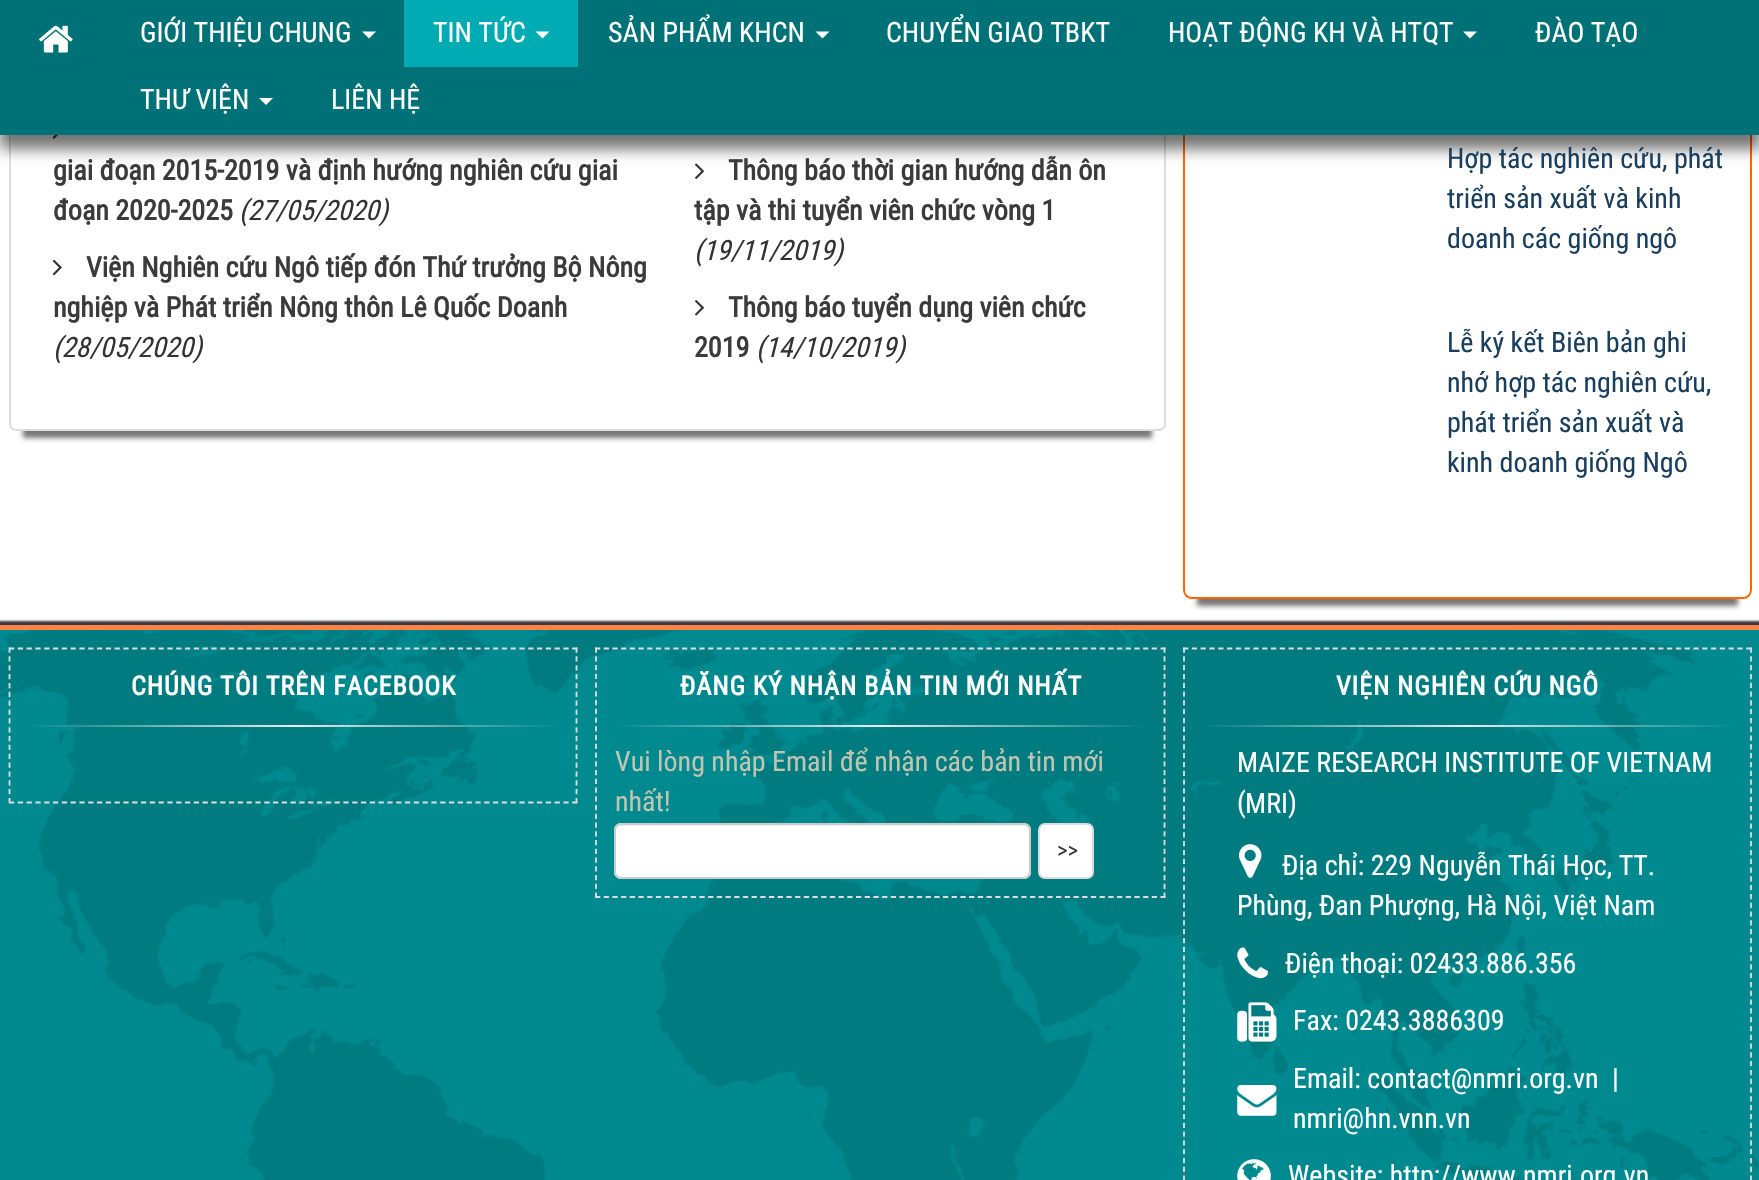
#include "include/core/SkBlurTypes.h"
#include "include/core/SkCanvas.h"
#include "include/core/SkData.h"
#include "include/core/SkFont.h"
#include "include/core/SkFontMgr.h"
#include "include/core/SkImage.h"
#include "include/core/SkMaskFilter.h"
#include "include/core/SkPaint.h"
#include "include/core/SkPathBuilder.h"
#include "include/core/SkTextBlob.h"
#include "include/effects/SkDashPathEffect.h"
#include "include/effects/SkGradientShader.h"
#include "include/utils/SkParsePath.h"

extern sk_sp<SkFontMgr> fontMgr;

static SkFont font(const char* family, int weight, float size, bool italic = false) {
    SkFontStyle style(weight, SkFontStyle::kNormal_Width,
        italic ? SkFontStyle::kItalic_Slant : SkFontStyle::kUpright_Slant);
    SkFont result(fontMgr->matchFamilyStyle(family, style), size);
    result.setSubpixel(true);
    return result;
}

static void drawLabel(SkCanvas* canvas, const char* s, float x, float y, const SkFont& font, SkColor color) {
    SkPaint ink(SkColor4f::FromColor(color));
    ink.setAntiAlias(true);
    canvas->drawString(s, x, y, font, ink);
}

static void drawTracked(SkCanvas* canvas, const char* s, float x, float y, const SkFont& font, const SkPaint& ink, float letter, float word) {
    std::vector<SkGlyphID> glyphs(font.countText(s, strlen(s), SkTextEncoding::kUTF8));
    std::vector<float> xs(glyphs.size());
    font.textToGlyphs(s, strlen(s), SkTextEncoding::kUTF8, glyphs);
    font.getXPos(glyphs, xs, x);
    float extra = 0;
    for (size_t i = 0; i < glyphs.size(); i++) {
        xs[i] += extra;
        extra += letter + word * (glyphs[i] == font.unicharToGlyph(' '));
    }
    canvas->drawTextBlob(SkTextBlob::MakeFromPosHGlyphs(glyphs, xs, y, font), 0, 0, ink);
}

static void fillRect(SkCanvas* canvas, float x, float y, float w, float h, SkColor color) {
    SkPaint ink(SkColor4f::FromColor(color));
    ink.setAntiAlias(true);
    canvas->drawRect(SkRect::MakeXYWH(x, y, w, h), ink);
}

static void fillRRect(SkCanvas* canvas, float x, float y, float w, float h, float radius, SkColor color) {
    SkPaint ink(SkColor4f::FromColor(color));
    ink.setAntiAlias(true);
    canvas->drawRoundRect(SkRect::MakeXYWH(x, y, w, h), radius, radius, ink);
}

static void drawPhoto(SkCanvas* canvas, const char* path, float x, float y, float w, float h) {
    auto image = SkImages::DeferredFromEncodedData(SkData::MakeFromFileName(path));
    canvas->drawImageRect(image, SkRect::MakeXYWH(x, y, w, h), SkSamplingOptions());
}

static SkPath parsePath(const char* data, bool evenOdd = false) {
    SkPath result = *SkParsePath::FromSVGString(data);
    if (evenOdd) result.setFillType(SkPathFillType::kEvenOdd);
    return result;
}

void draw(SkCanvas* canvas) {
    SkPaint paint;
    paint.setAntiAlias(true);
    canvas->clear(0xFFFFFFFF);
    paint.setColor(0xFF777777);
    paint.setMaskFilter(SkMaskFilter::MakeBlur(kNormal_SkBlurStyle, 2.5f));
    canvas->drawRect(SkRect::MakeXYWH(23, -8, 1129, 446), paint);
    paint.setMaskFilter(nullptr);
    paint.setColor(0xFFFFFFFF);
    canvas->drawRoundRect(SkRect::MakeXYWH(10, -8, 1155, 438), 6, 6, paint);
    paint.setStroke(true);
    paint.setStrokeWidth(2);
    paint.setColor(0xFFDDDDDD);
    canvas->drawRoundRect(SkRect::MakeXYWH(10, -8, 1155, 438), 6, 6, paint);
    drawPhoto(canvas, "assets/img2.png", 52, 135, 6, 4);
    drawPhoto(canvas, "assets/img4.png", 695, 163, 9, 16);
    canvas->save();
    canvas->clipRect(SkRect::MakeXYWH(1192, 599, 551, 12));
    paint.setStroke(false);
    paint.setColor(0xFF777777);
    paint.setMaskFilter(SkMaskFilter::MakeBlur(kNormal_SkBlurStyle, 2.5f));
    canvas->drawRect(SkRect::MakeXYWH(1197, -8, 541, 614), paint);
    paint.setMaskFilter(nullptr);
    canvas->restore();
    paint.setStroke(true);
    paint.setColor(0xFFFF6600);
    canvas->drawPath(parsePath("M1184-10H1751V590C1751 594.5 1747.5 598 1743 598H1192C1187.5 598 1184 594.5 1184 590Z"), paint);
    paint.setStroke(false);
    paint.setColor(0x8C000000);
    paint.setMaskFilter(SkMaskFilter::MakeBlur(kNormal_SkBlurStyle, 7));
    canvas->drawRect(SkRect::MakeXYWH(0, 14, 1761, 135), paint);
    paint.setMaskFilter(nullptr);
    fillRect(canvas, 0, 0, 1759, 135, 0xFF007176);
    drawPhoto(canvas, "assets/img1.png", 39, 25, 34, 28);
    SkFont font1 = font("Roboto Condensed", 400, 28);
    drawLabel(canvas, "GIỚI THIỆU CHUNG", 140, 42, font1, 0xFFFFFFFF);
    paint.setColor(0xFFFFFFFF);
    canvas->drawPath(parsePath("M362 31.5H376L369 38.5Z"), paint);
    fillRect(canvas, 404, 0, 174, 67, 0xFF00ABB3);
    drawLabel(canvas, "TIN TỨC", 433, 42, font1, 0xFFFFFFFF);
    canvas->drawPath(parsePath("M535.5 31.5H549.5L542.5 38.5Z"), paint);
    drawLabel(canvas, "SẢN PHẨM KHCN", 608, 42, font1, 0xFFFFFFFF);
    canvas->drawPath(parsePath("M815.5 31.5H829.5L822.5 38.5Z"), paint);
    drawLabel(canvas, "CHUYỂN GIAO TBKT", 886, 42, font1, 0xFFFFFFFF);
    drawLabel(canvas, "HOẠT ĐỘNG KH VÀ HTQT", 1168, 42, font1, 0xFFFFFFFF);
    canvas->drawPath(parsePath("M1463 31.5H1477L1470 38.5Z"), paint);
    drawLabel(canvas, "ĐÀO TẠO", 1535, 42, font1, 0xFFFFFFFF);
    drawLabel(canvas, "THƯ VIỆN", 140, 109, font1, 0xFFFFFFFF);
    canvas->drawPath(parsePath("M259 98H273L266 105Z"), paint);
    drawLabel(canvas, "LIÊN HỆ", 331, 109, font1, 0xFFFFFFFF);
    SkFont font2 = font("Roboto Condensed", 700, 28);
    drawLabel(canvas, "giai đoạn 2015-2019 và định hướng nghiên cứu giai", 53, 180, font2, 0xFF3B3B3B);
    drawLabel(canvas, "đoạn 2020-2025", 53, 220, font2, 0xFF3B3B3B);
    SkFont font3 = font("Roboto Condensed", 400, 28, true);
    drawLabel(canvas, "(27/05/2020)", 239, 220, font3, 0xFF333333);
    drawPhoto(canvas, "assets/img3.png", 52, 259, 10, 17);
    drawLabel(canvas, "Viện Nghiên cứu Ngô tiếp đón Thứ trưởng Bộ Nông", 86, 277, font2, 0xFF3B3B3B);
    drawLabel(canvas, "nghiệp và Phát triển Nông thôn Lê Quốc Doanh", 53, 317, font2, 0xFF3B3B3B);
    drawLabel(canvas, "(28/05/2020)", 53, 357, font3, 0xFF333333);
    drawLabel(canvas, "Thông báo thời gian hướng dẫn ôn", 728, 180, font2, 0xFF3B3B3B);
    drawLabel(canvas, "tập và thi tuyển viên chức vòng 1", 694, 220, font2, 0xFF3B3B3B);
    drawLabel(canvas, "(19/11/2019)", 694, 260, font3, 0xFF333333);
    drawPhoto(canvas, "assets/img5.png", 695, 300, 9, 16);
    drawLabel(canvas, "Thông báo tuyển dụng viên chức", 728, 317, font2, 0xFF3B3B3B);
    drawLabel(canvas, "2019", 694, 357, font2, 0xFF3B3B3B);
    drawLabel(canvas, "(14/10/2019)", 756, 357, font3, 0xFF333333);
    drawLabel(canvas, "Hợp tác nghiên cứu, phát", 1447, 168, font1, 0xFF1A3F5E);
    drawLabel(canvas, "triển sản xuất và kinh", 1447, 208, font1, 0xFF1A3F5E);
    drawLabel(canvas, "doanh các giống ngô", 1447, 248, font1, 0xFF1A3F5E);
    drawLabel(canvas, "Lễ ký kết Biên bản ghi", 1447, 352, font1, 0xFF1A3F5E);
    drawLabel(canvas, "nhớ hợp tác nghiên cứu,", 1447, 392, font1, 0xFF1A3F5E);
    drawLabel(canvas, "phát triển sản xuất và", 1447, 432, font1, 0xFF1A3F5E);
    drawLabel(canvas, "kinh doanh giống Ngô", 1447, 472, font1, 0xFF1A3F5E);
    paint.setColor(0xFF3B3A3B);
    paint.setMaskFilter(SkMaskFilter::MakeBlur(kNormal_SkBlurStyle, 1));
    canvas->drawRect(SkRect::MakeXYWH(-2, 621, 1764, 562), paint);
    paint.setMaskFilter(nullptr);
    fillRect(canvas, 0, 630, 1759, 550, 0xFF008A90);
    drawPhoto(canvas, "assets/img6.png", 0, 624, 1759, 556);
    fillRect(canvas, 0, 625, 1759, 5, 0xFFFF8247);
    paint.setStroke(true);
    paint.setStrokeWidth(1.8f);
    paint.setColor(0xFFDDDDDD);
    paint.setPathEffect(SkDashPathEffect::Make({{5.25f, 3.55f}}, 0));
    canvas->drawPath(parsePath("M9 648.5H577.5"), paint);
    paint.setPathEffect(nullptr);
    paint.setPathEffect(SkDashPathEffect::Make({{5.25f, 3.6f}}, 0));
    canvas->drawPath(parsePath("M576.5 647.5V803"), paint);
    paint.setPathEffect(nullptr);
    paint.setPathEffect(SkDashPathEffect::Make({{5.25f, 3.55f}}, 0));
    canvas->drawPath(parsePath("M9 802.5H577.5"), paint);
    paint.setPathEffect(nullptr);
    paint.setPathEffect(SkDashPathEffect::Make({{5.25f, 3.6f}}, 0));
    canvas->drawPath(parsePath("M9.5 647.5V803"), paint);
    paint.setPathEffect(nullptr);
    SkFont font4 = font("Roboto Condensed", 700, 26.25f);
    paint.setStroke(false);
    paint.setColor(0xFFFFFFFF);
    drawTracked(canvas, "CHÚNG TÔI TRÊN FACEBOOK", 131, 695, font4, paint, 0.9f, 0);
    {
        const SkColor colors[] = {0x00E9EBEE, 0xFFE9EBEE, 0x00E9EBEE};
        const float stops[] = {0, 0.5f, 1};
        const SkPoint ends[] = {{28, 725}, {558, 725}};
        paint.setShader(SkGradientShader::MakeLinear(ends, colors, stops, 3, SkTileMode::kClamp));
        paint.setAlpha(255);
    }
    canvas->drawRect(SkRect::MakeXYWH(28, 725, 530, 2), paint);
    paint.setStroke(true);
    paint.setShader(nullptr);
    paint.setColor(0xFFDDDDDD);
    paint.setPathEffect(SkDashPathEffect::Make({{5.25f, 3.45f}}, 0));
    canvas->drawPath(parsePath("M595 648.5H1165.5"), paint);
    paint.setPathEffect(nullptr);
    paint.setPathEffect(SkDashPathEffect::Make({{5.25f, 3.5f}}, 0));
    canvas->drawPath(parsePath("M1164.5 647.5V898"), paint);
    paint.setPathEffect(nullptr);
    paint.setPathEffect(SkDashPathEffect::Make({{5.25f, 3.45f}}, 0));
    canvas->drawPath(parsePath("M595 897H1165.5"), paint);
    paint.setPathEffect(nullptr);
    paint.setPathEffect(SkDashPathEffect::Make({{5.25f, 3.5f}}, 0));
    canvas->drawPath(parsePath("M596 647.5V898"), paint);
    paint.setPathEffect(nullptr);
    paint.setStroke(false);
    paint.setColor(0xFFFFFFFF);
    drawTracked(canvas, "ĐĂNG KÝ NHẬN BẢN TIN MỚI NHẤT", 680, 695, font4, paint, 0.9f, 0);
    {
        const SkColor colors[] = {0x00E9EBEE, 0xFFE9EBEE, 0x00E9EBEE};
        const float stops[] = {0, 0.5f, 1};
        const SkPoint ends[] = {{614, 725}, {1146, 725}};
        paint.setShader(SkGradientShader::MakeLinear(ends, colors, stops, 3, SkTileMode::kClamp));
        paint.setAlpha(255);
    }
    canvas->drawRect(SkRect::MakeXYWH(614, 725, 532, 2), paint);
    drawLabel(canvas, "Vui lòng nhập Email để nhận các bản tin mới", 615, 771, font1, 0xFFC0C5B1);
    drawLabel(canvas, "nhất!", 615, 811, font1, 0xFFC0C5B1);
    fillRRect(canvas, 614, 823, 417, 56, 7, 0xFFFFFFFF);
    paint.setShader(nullptr);
    paint.setColor(0xFFECECEC);
    canvas->drawPath(parsePath("M621 826H1024C1027 826 1029 828 1029 831V829C1029 826 1027 824 1024 824H621C618 824 616 826 616 829V831C616 828 618 826 621 826Z"), paint);
    paint.setStroke(true);
    paint.setStrokeWidth(2);
    paint.setColor(0xFFCCCCCC);
    canvas->drawRoundRect(SkRect::MakeXYWH(615, 824, 415, 54), 6, 6, paint);
    paint.setStroke(false);
    paint.setColor(0xFFFFFFFF);
    canvas->drawRoundRect(SkRect::MakeXYWH(1039, 824, 54, 54), 6, 6, paint);
    paint.setStroke(true);
    paint.setColor(0xFFDDDDDD);
    canvas->drawRoundRect(SkRect::MakeXYWH(1039, 824, 54, 54), 6, 6, paint);
    SkFont font5 = font("Roboto Condensed", 400, 23);
    drawLabel(canvas, ">>", 1057, 858, font5, 0xFF333333);
    paint.setStrokeWidth(1.8f);
    paint.setPathEffect(SkDashPathEffect::Make({{5.25f, 3.55f}}, 0));
    canvas->drawPath(parsePath("M1183 648.5H1752"), paint);
    paint.setPathEffect(nullptr);
    paint.setPathEffect(SkDashPathEffect::Make({{5.25f, 3.55f}}, 0));
    canvas->drawPath(parsePath("M1751 647.5V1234"), paint);
    paint.setPathEffect(nullptr);
    paint.setPathEffect(SkDashPathEffect::Make({{5.25f, 3.55f}}, 0));
    canvas->drawPath(parsePath("M1184 647.5V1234"), paint);
    paint.setPathEffect(nullptr);
    paint.setStroke(false);
    paint.setColor(0xFFFFFFFF);
    drawTracked(canvas, "VIỆN NGHIÊN CỨU NGÔ", 1336, 695, font4, paint, 0.9f, 0);
    {
        const SkColor colors[] = {0x00E9EBEE, 0xFFE9EBEE, 0x00E9EBEE};
        const float stops[] = {0, 0.5f, 1};
        const SkPoint ends[] = {{1202, 725}, {1733, 725}};
        paint.setShader(SkGradientShader::MakeLinear(ends, colors, stops, 3, SkTileMode::kClamp));
        paint.setAlpha(255);
    }
    canvas->drawRect(SkRect::MakeXYWH(1202, 725, 531, 2), paint);
    drawLabel(canvas, "MAIZE RESEARCH INSTITUTE OF VIETNAM", 1237, 772, font1, 0xFFFFFFFF);
    drawLabel(canvas, "(", 1237, 812, font1, 0xFFFFFFFF);
    drawLabel(canvas, "MRI", 1245, 813, font1, 0xFFFFFFFF);
    drawLabel(canvas, ")", 1288, 812, font1, 0xFFFFFFFF);
    drawPhoto(canvas, "assets/img7.png", 1239, 844, 23, 34);
    drawLabel(canvas, "Địa chỉ: 229 Nguyễn Thái Học, TT.", 1282, 875, font1, 0xFFFFFFFF);
    drawLabel(canvas, "Phùng, Đan Phượng, Hà Nội, Việt Nam", 1237, 915, font1, 0xFFFFFFFF);
    drawPhoto(canvas, "assets/img8.png", 1237, 947, 31, 32);
    drawLabel(canvas, "Điện thoại: 02433.886.356", 1285, 973, font1, 0xFFFFFFFF);
    drawPhoto(canvas, "assets/img9.png", 1237, 1002, 40, 40);
    drawLabel(canvas, "Fax: 0243.3886309", 1293, 1030, font1, 0xFFFFFFFF);
    drawPhoto(canvas, "assets/img10.png", 1237, 1085, 40, 31);
    drawLabel(canvas, "Email: contact@nmri.org.vn", 1293, 1088, font1, 0xFFFFFFFF);
    drawLabel(canvas, "|", 1612, 1088, font1, 0xFFFFFFFF);
    drawLabel(canvas, "nmri@hn.vnn.vn", 1293, 1128, font1, 0xFFFFFFFF);
    drawPhoto(canvas, "assets/img11.png", 1237, 1159, 34, 21);
    drawLabel(canvas, "Website: http://www.nmri.org.vn", 1288, 1185, font1, 0xFFFFFFFF);
}
